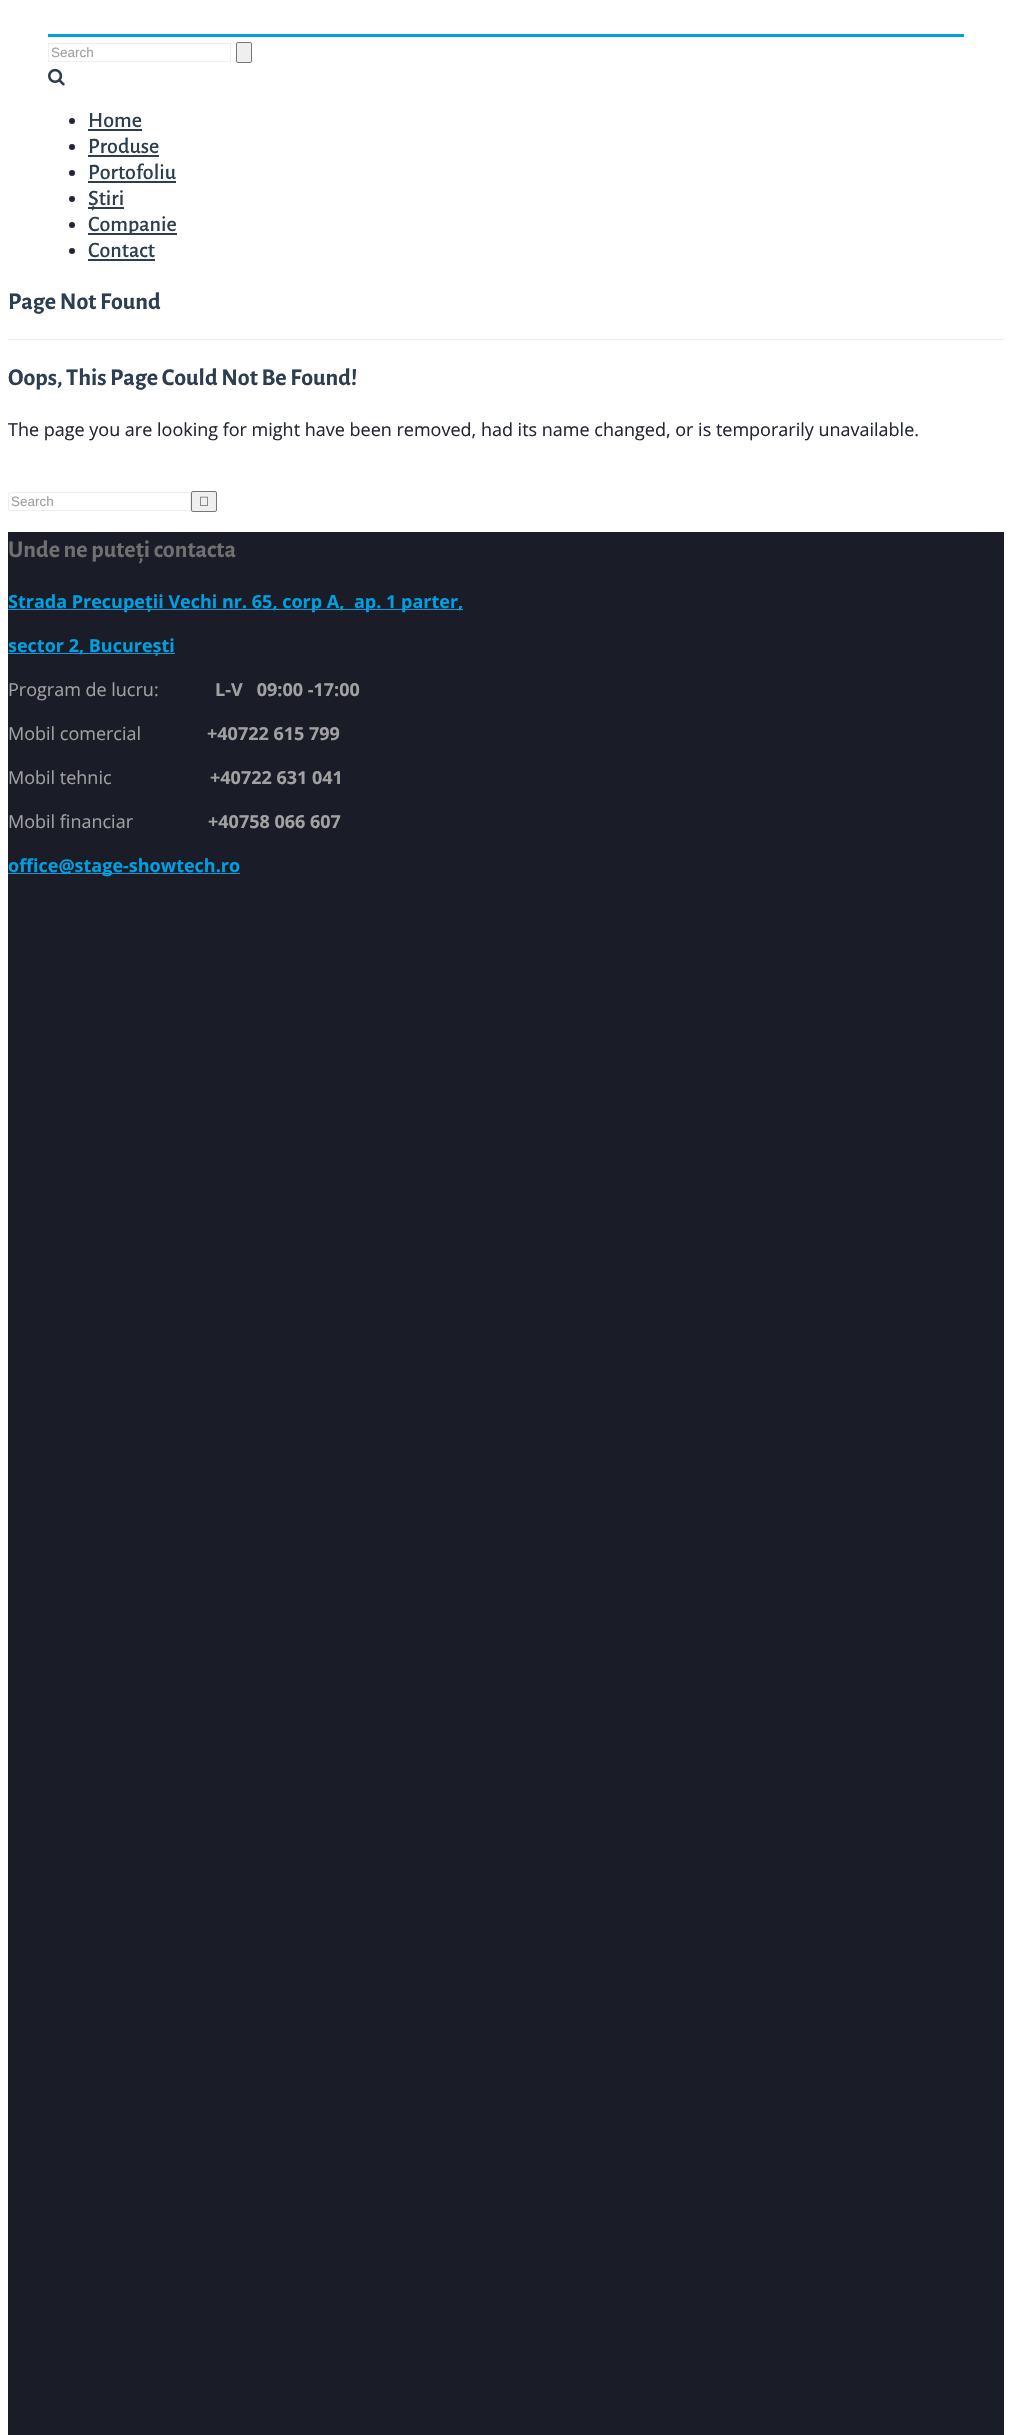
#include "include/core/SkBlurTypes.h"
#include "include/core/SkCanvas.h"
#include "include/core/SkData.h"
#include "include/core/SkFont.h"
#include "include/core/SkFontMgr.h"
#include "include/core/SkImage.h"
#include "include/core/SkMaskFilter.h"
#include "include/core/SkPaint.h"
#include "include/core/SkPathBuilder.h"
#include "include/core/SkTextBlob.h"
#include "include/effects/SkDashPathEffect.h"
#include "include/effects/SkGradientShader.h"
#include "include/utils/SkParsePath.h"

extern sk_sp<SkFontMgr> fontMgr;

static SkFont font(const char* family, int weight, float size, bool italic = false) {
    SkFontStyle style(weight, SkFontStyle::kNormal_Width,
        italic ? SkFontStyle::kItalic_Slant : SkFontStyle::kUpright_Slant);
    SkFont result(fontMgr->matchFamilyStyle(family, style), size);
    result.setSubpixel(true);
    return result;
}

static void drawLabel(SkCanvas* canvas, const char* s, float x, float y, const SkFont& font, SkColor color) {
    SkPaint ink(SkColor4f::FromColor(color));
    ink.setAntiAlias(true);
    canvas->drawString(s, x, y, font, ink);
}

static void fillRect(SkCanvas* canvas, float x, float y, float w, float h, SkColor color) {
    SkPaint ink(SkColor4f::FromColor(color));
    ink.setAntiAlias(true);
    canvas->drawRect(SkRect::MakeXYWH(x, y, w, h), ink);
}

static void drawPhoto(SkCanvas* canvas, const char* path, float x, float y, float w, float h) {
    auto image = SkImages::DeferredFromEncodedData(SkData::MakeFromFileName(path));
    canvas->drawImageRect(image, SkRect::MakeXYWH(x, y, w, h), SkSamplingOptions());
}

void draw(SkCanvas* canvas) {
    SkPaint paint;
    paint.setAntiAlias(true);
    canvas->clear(0xFFFFFFFF);
    fillRect(canvas, 48, 34, 916, 3, 0xFF019FE0);
    paint.setStroke(true);
    paint.setStrokeWidth(1);
    paint.setColor(0xFFECEEF0);
    canvas->drawRect(SkRect::MakeXYWH(48.5f, 43.5f, 182, 18), paint);
    SkFont font1 = font("Liberation Sans", 400, 13.5f);
    drawLabel(canvas, "Search", 51, 57, font1, 0xFFA1A1A1);
    paint.setStroke(false);
    paint.setColor(0xFFEFEFEF);
    canvas->drawRoundRect(SkRect::MakeXYWH(236.5f, 42.5f, 15, 20), 1.5f, 1.5f, paint);
    paint.setStroke(true);
    paint.setColor(0xFF767676);
    canvas->drawRoundRect(SkRect::MakeXYWH(236.5f, 42.5f, 15, 20), 1.5f, 1.5f, paint);
    drawPhoto(canvas, "assets/img1.png", 48, 68, 17, 18);
    paint.setStroke(false);
    paint.setColor(0xFF222533);
    canvas->drawCircle(72, 121, 3, paint);
    SkFont font2 = font("Alegreya Sans", 500, 22);
    drawLabel(canvas, "Home", 88, 127, font2, 0xFF2C3E50);
    fillRect(canvas, 88, 129, 54, 2, 0xFF2C3E50);
    canvas->drawCircle(72, 147, 3, paint);
    drawLabel(canvas, "Produse", 88, 153, font2, 0xFF2C3E50);
    fillRect(canvas, 88, 155, 71, 2, 0xFF2C3E50);
    canvas->drawCircle(72, 173, 3, paint);
    drawLabel(canvas, "Portofoliu", 88, 179, font2, 0xFF2C3E50);
    fillRect(canvas, 88, 181, 88, 2, 0xFF2C3E50);
    canvas->drawCircle(72, 199, 3, paint);
    fillRect(canvas, 88, 207, 36, 2, 0xFF2C3E50);
    drawLabel(canvas, "Știri", 88, 205, font2, 0xFF2C3E50);
    canvas->drawCircle(72, 225, 3, paint);
    fillRect(canvas, 88, 233, 89, 2, 0xFF2C3E50);
    drawLabel(canvas, "Companie", 88, 231, font2, 0xFF2C3E50);
    canvas->drawCircle(72, 251, 3, paint);
    drawLabel(canvas, "Contact", 88, 257, font2, 0xFF2C3E50);
    fillRect(canvas, 88, 259, 67, 2, 0xFF2C3E50);
    fillRect(canvas, 8, 339, 996, 1, 0xFFECF0F1);
    SkFont font3 = font("Alegreya Sans", 700, 24);
    drawLabel(canvas, "Page Not Found", 8, 309, font3, 0xFF2C3E50);
    drawLabel(canvas, "Oops, This Page Could Not Be Found!", 8, 385, font3, 0xFF2C3E50);
    SkFont font4 = font("Open Sans", 400, 18);
    drawLabel(canvas, "The page you are looking for might have been removed, had its name changed, or is temporarily unavailable.", 8, 436, font4, 0xFF222533);
    paint.setStroke(true);
    paint.setColor(0xFFECF0F1);
    canvas->drawRoundRect(SkRect::MakeXYWH(8.5f, 492.5f, 182, 18), 1.5f, 1.5f, paint);
    drawLabel(canvas, "Search", 11, 506, font1, 0xFFA1A1A1);
    paint.setStroke(false);
    paint.setColor(0xFFEFEFEF);
    canvas->drawRoundRect(SkRect::MakeXYWH(191.5f, 491.5f, 25, 20), 1.5f, 1.5f, paint);
    paint.setStroke(true);
    paint.setColor(0xFF767676);
    canvas->drawRoundRect(SkRect::MakeXYWH(191.5f, 491.5f, 25, 20), 1.5f, 1.5f, paint);
    drawPhoto(canvas, "assets/img2.png", 200, 496, 8, 10);
    fillRect(canvas, 8, 532, 996, 1903, 0xFF1A1C27);
    drawLabel(canvas, "Unde ne puteți contacta", 8, 557, font3, 0xFF707070);
    fillRect(canvas, 8, 609, 455, 1, 0xFF019FE0);
    SkFont font5 = font("Open Sans", 700, 18);
    drawLabel(canvas, "Strada Precupeții Vechi nr. 65, corp A,", 8, 608, font5, 0xFF019FE0);
    drawLabel(canvas, "ap. 1 parter,", 354, 608, font5, 0xFF019FE0);
    fillRect(canvas, 8, 653, 167, 1, 0xFF019FE0);
    drawLabel(canvas, "sector 2, București", 8, 652, font5, 0xFF019FE0);
    drawLabel(canvas, "Program de lucru:", 8, 696, font4, 0xFFA1A1A1);
    drawLabel(canvas, "L-V   09:00 -17:00", 215, 696, font5, 0xFFA1A1A1);
    drawLabel(canvas, "Mobil comercial", 8, 740, font4, 0xFFA1A1A1);
    drawLabel(canvas, "+40722 615 799", 207, 740, font5, 0xFFA1A1A1);
    drawLabel(canvas, "Mobil tehnic", 8, 784, font4, 0xFFA1A1A1);
    drawLabel(canvas, "+40722 631 041", 210, 784, font5, 0xFFA1A1A1);
    drawLabel(canvas, "Mobil financiar", 8, 828, font4, 0xFFA1A1A1);
    drawLabel(canvas, "+40758 066 607", 208, 828, font5, 0xFFA1A1A1);
    fillRect(canvas, 8, 873, 232, 1, 0xFF019FE0);
    drawLabel(canvas, "office@stage-showtech.ro", 8, 872, font5, 0xFF019FE0);
}
